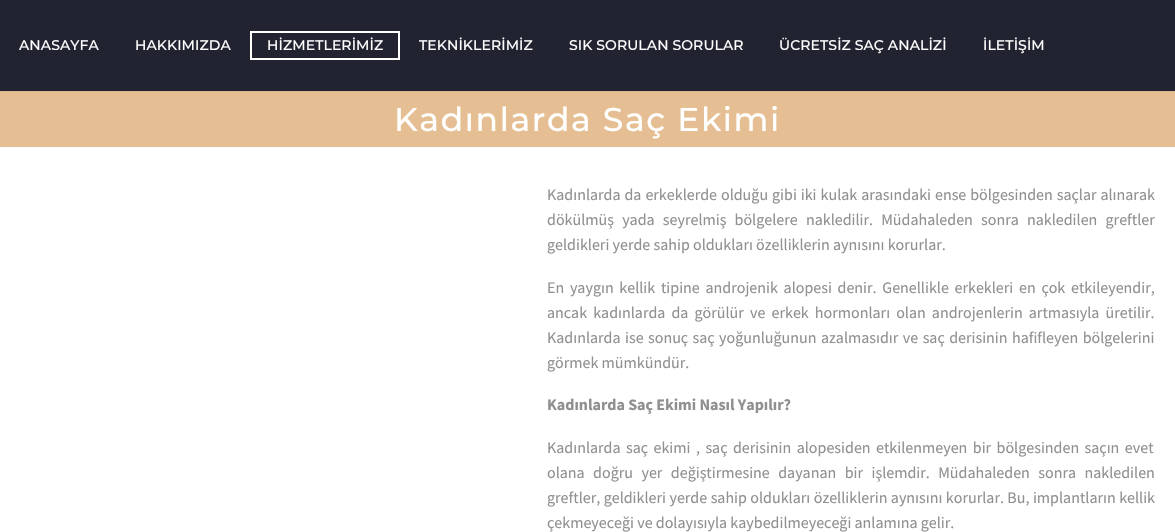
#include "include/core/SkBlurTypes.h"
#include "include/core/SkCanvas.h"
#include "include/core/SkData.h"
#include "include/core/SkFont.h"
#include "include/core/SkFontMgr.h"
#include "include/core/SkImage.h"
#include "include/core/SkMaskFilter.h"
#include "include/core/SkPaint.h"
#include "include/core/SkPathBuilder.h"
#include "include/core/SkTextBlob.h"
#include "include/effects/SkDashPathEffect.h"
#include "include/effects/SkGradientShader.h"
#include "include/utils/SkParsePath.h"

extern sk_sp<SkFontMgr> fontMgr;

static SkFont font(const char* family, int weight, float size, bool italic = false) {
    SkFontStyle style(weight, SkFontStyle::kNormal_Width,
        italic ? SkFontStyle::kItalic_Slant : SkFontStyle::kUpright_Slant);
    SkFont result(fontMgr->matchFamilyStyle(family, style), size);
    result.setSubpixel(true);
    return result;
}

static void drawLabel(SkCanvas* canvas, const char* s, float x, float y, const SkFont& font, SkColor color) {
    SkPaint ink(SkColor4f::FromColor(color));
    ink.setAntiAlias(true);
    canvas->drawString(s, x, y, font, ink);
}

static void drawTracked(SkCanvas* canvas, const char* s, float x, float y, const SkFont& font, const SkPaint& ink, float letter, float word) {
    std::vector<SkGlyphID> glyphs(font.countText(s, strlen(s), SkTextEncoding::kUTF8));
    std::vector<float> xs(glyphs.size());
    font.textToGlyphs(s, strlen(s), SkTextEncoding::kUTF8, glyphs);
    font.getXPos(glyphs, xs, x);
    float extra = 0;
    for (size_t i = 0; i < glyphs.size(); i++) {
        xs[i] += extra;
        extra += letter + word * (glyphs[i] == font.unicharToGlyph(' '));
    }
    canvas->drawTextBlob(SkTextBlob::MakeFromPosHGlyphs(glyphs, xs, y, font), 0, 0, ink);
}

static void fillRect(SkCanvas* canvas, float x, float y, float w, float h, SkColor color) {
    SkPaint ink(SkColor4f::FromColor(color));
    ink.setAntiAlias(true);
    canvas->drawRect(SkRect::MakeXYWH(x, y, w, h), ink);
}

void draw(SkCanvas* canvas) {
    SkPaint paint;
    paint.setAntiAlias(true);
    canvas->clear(0xFF212331);
    fillRect(canvas, 0, 91, 1175, 56, 0xFFE5BF93);
    canvas->save();
    canvas->clipRect(SkRect::MakeXYWH(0, 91, 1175, 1));
    paint.setColor(0x33384554);
    paint.setMaskFilter(SkMaskFilter::MakeBlur(kNormal_SkBlurStyle, 1));
    canvas->drawRect(SkRect::MakeXYWH(0, 0, 1175, 91), paint);
    paint.setMaskFilter(nullptr);
    canvas->restore();
    SkFont font1 = font("Montserrat", 500, 14);
    paint.setColor(0xFFFFFFFF);
    drawTracked(canvas, "ANASAYFA", 19, 50, font1, paint, 0.1f, 0);
    drawTracked(canvas, "HAKKIMIZDA", 135, 50, font1, paint, 0.1f, 0);
    paint.setStroke(true);
    paint.setStrokeWidth(2);
    canvas->drawRect(SkRect::MakeXYWH(251, 32, 148, 27), paint);
    paint.setStroke(false);
    drawTracked(canvas, "HİZMETLERİMİZ", 267, 50, font1, paint, 0.1f, 0);
    drawTracked(canvas, "TEKNİKLERİMİZ", 419, 50, font1, paint, 0.1f, 0);
    drawTracked(canvas, "SIK SORULAN SORULAR", 569, 50, font1, paint, 0.1f, 0);
    drawTracked(canvas, "ÜCRETSİZ SAÇ ANALİZİ", 779, 50, font1, paint, 0.1f, 0);
    drawTracked(canvas, "İLETİŞİM", 983, 50, font1, paint, 0.1f, 0);
    SkFont font2 = font("Montserrat", 500, 33);
    drawTracked(canvas, "Kadınlarda Saç Ekimi", 394, 131, font2, paint, 1.6f, 0);
    fillRect(canvas, 0, 147, 1175, 385, 0xFFFFFFFF);
    SkFont font3 = font("Source Sans Pro", 400, 16);
    paint.setColor(0xFF909090);
    drawTracked(canvas, "Kadınlarda da erkeklerde olduğu gibi iki kulak arasındaki ense bölgesinden saçlar alınarak", 547, 200, font3, paint, 0, 0.75f);
    drawTracked(canvas, "dökülmüş yada seyrelmiş bölgelere nakledilir. Müdahaleden sonra nakledilen greftler", 547, 225, font3, paint, 0, 5);
    drawLabel(canvas, "geldikleri yerde sahip oldukları özelliklerin aynısını korurlar.", 547, 250, font3, 0xFF909090);
    drawTracked(canvas, "En yaygın kellik tipine androjenik alopesi denir. Genellikle erkekleri en çok etkileyendir,", 547, 293, font3, paint, 0, 2.5f);
    drawTracked(canvas, "ancak kadınlarda da görülür ve erkek hormonları olan androjenlerin artmasıyla üretilir.", 547, 318, font3, paint, 0, 2.9f);
    drawTracked(canvas, "Kadınlarda ise sonuç saç yoğunluğunun azalmasıdır ve saç derisinin hafifleyen bölgelerini", 547, 343, font3, paint, 0, 1.25f);
    drawLabel(canvas, "görmek mümkündür.", 547, 368, font3, 0xFF909090);
    SkFont font4 = font("Source Sans Pro", 700, 16);
    drawLabel(canvas, "Kadınlarda Saç Ekimi Nasıl Yapılır?", 547, 410, font4, 0xFF909090);
    drawTracked(canvas, "Kadınlarda saç ekimi , saç derisinin alopesiden etkilenmeyen bir bölgesinden saçın evet", 547, 453, font3, paint, 0, 2.25f);
    drawTracked(canvas, "olana doğru yer değiştirmesine dayanan bir işlemdir. Müdahaleden sonra nakledilen", 547, 478, font3, paint, 0, 5.25f);
    drawTracked(canvas, "greftler, geldikleri yerde sahip oldukları özelliklerin aynısını korurlar. Bu, implantların kellik", 547, 503, font3, paint, 0, 0.25f);
    drawLabel(canvas, "çekmeyeceği ve dolayısıyla kaybedilmeyeceği anlamına gelir.", 547, 528, font3, 0xFF909090);
}
